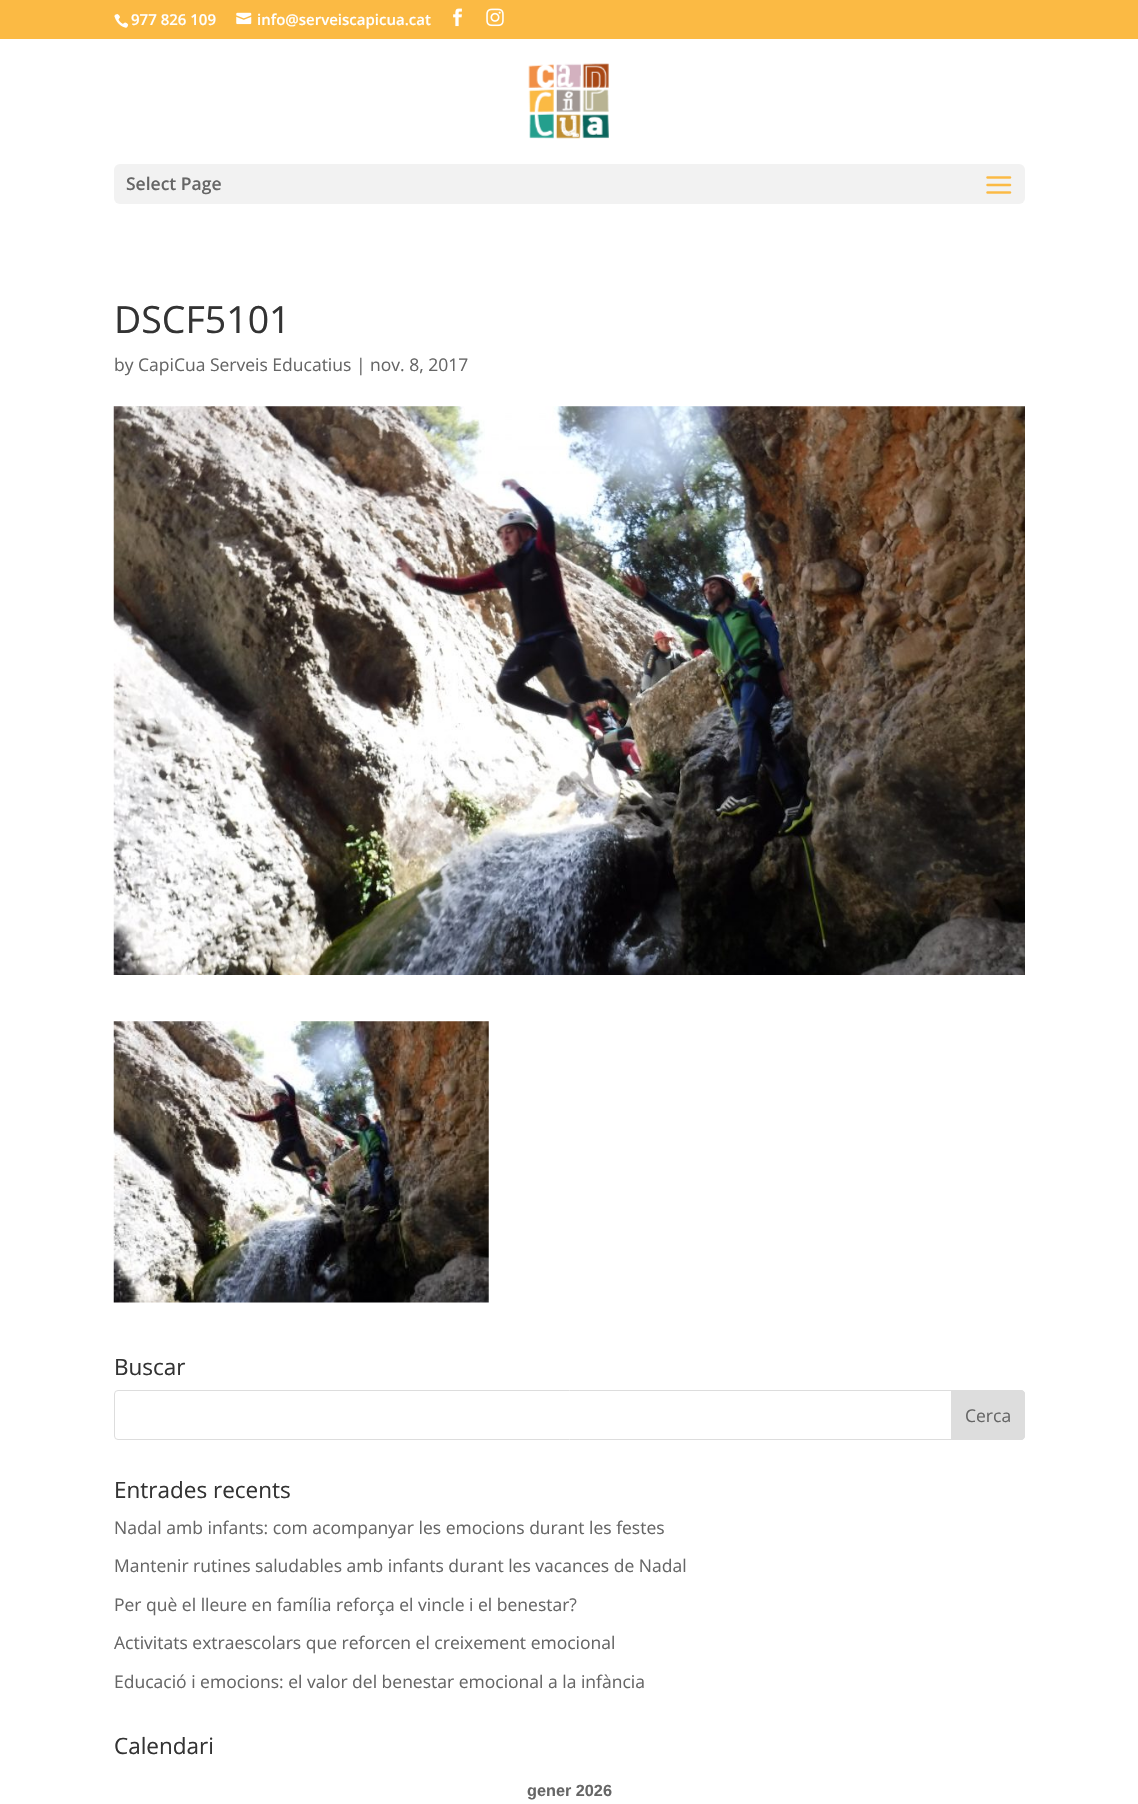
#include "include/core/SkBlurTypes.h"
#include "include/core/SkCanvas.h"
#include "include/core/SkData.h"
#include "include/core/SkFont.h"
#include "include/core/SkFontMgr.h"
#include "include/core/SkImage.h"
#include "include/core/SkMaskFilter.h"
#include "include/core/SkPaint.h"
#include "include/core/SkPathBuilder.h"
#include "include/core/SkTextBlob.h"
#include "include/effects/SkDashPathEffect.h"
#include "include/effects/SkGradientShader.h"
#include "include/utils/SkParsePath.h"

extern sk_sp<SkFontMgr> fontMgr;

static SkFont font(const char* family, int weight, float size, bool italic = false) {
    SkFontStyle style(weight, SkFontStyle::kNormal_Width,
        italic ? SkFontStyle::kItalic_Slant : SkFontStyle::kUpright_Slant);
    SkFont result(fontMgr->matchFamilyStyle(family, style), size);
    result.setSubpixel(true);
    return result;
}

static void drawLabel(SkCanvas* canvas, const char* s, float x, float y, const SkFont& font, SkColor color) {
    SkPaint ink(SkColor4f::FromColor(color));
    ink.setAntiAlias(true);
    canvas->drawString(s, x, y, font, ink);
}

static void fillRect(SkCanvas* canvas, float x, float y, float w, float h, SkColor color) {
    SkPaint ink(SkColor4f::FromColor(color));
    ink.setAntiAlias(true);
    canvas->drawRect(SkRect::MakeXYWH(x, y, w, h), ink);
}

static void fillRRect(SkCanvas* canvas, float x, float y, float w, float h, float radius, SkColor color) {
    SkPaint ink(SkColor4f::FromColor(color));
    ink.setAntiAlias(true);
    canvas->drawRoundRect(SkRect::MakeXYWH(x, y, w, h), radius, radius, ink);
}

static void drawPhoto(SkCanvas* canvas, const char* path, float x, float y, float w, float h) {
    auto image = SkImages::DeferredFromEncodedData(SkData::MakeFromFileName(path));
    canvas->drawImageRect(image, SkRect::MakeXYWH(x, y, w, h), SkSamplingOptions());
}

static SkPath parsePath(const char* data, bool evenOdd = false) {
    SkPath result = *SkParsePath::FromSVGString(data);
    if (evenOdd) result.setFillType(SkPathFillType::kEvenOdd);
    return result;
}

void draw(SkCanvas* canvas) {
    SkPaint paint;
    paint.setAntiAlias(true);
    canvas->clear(0xFFFFFFFF);
    fillRect(canvas, 0, 0, 1138, 39, 0xFFFBBA44);
    drawPhoto(canvas, "assets/img1.png", 114, 14, 15, 14);
    SkFont font1 = font("Open Sans", 600, 15);
    drawLabel(canvas, "977 826 109", 131, 25, font1, 0xFFFFFFFF);
    drawPhoto(canvas, "assets/img2.png", 236, 12, 16, 13);
    drawLabel(canvas, "info@serveiscapicua.cat", 257, 25, font1, 0xFFFFFFFF);
    drawPhoto(canvas, "assets/img3.png", 453, 8, 9, 19);
    drawPhoto(canvas, "assets/img4.png", 486, 8, 18, 19);
    drawPhoto(canvas, "assets/img5.png", 528, 63, 81, 76);
    fillRRect(canvas, 114, 164, 911, 40, 6, 0xFFF2F2F2);
    SkFont font2 = font("Open Sans", 600, 17.5f);
    drawLabel(canvas, "Select Page", 126, 190, font2, 0xFF666666);
    drawPhoto(canvas, "assets/img6.png", 986, 176, 26, 18);
    SkFont font3 = font("Open Sans", 400, 37.5f);
    drawLabel(canvas, "DSCF5101", 114, 333, font3, 0xFF333333);
    SkFont font4 = font("Open Sans", 400, 17.5f);
    drawLabel(canvas, "by CapiCua Serveis Educatius | nov. 8, 2017", 114, 371, font4, 0xFF666666);
    drawPhoto(canvas, "assets/img7.png", 113, 406, 912, 569);
    drawPhoto(canvas, "assets/img8.png", 113, 1021, 376, 282);
    SkFont font5 = font("Open Sans", 400, 22.5f);
    drawLabel(canvas, "Buscar", 114, 1375, font5, 0xFF333333);
    paint.setStroke(true);
    paint.setStrokeWidth(1);
    paint.setColor(0xFFDDDDDD);
    canvas->drawRoundRect(SkRect::MakeXYWH(114.5f, 1390.5f, 910, 49), 3.5f, 3.5f, paint);
    paint.setStroke(false);
    canvas->drawPath(parsePath("M951.5 1390.5H1021C1023 1390.5 1024.5 1392 1024.5 1394V1436C1024.5 1438 1023 1439.5 1021 1439.5H951.5Z"), paint);
    paint.setStroke(true);
    canvas->drawPath(parsePath("M951.5 1390.5H1021C1023 1390.5 1024.5 1392 1024.5 1394V1436C1024.5 1438 1023 1439.5 1021 1439.5H951.5Z"), paint);
    drawLabel(canvas, "Cerca", 965, 1422, font4, 0xFF666666);
    drawLabel(canvas, "Entrades recents", 114, 1498, font5, 0xFF333333);
    drawLabel(canvas, "Nadal amb infants: com acompanyar les emocions durant les festes", 114, 1534, font4, 0xFF666666);
    drawLabel(canvas, "Mantenir rutines saludables amb infants durant les vacances de Nadal", 114, 1572, font4, 0xFF666666);
    drawLabel(canvas, "Per què el lleure en família reforça el vincle i el benestar?", 114, 1611, font4, 0xFF666666);
    drawLabel(canvas, "Activitats extraescolars que reforcen el creixement emocional", 114, 1649, font4, 0xFF666666);
    drawLabel(canvas, "Educació i emocions: el valor del benestar emocional a la infància", 114, 1688, font4, 0xFF666666);
    drawLabel(canvas, "Calendari", 114, 1754, font5, 0xFF333333);
    SkFont font6 = font("Liberation Sans", 700, 16.25f);
    drawLabel(canvas, "gener 2026", 527, 1796, font6, 0xFF666666);
}
